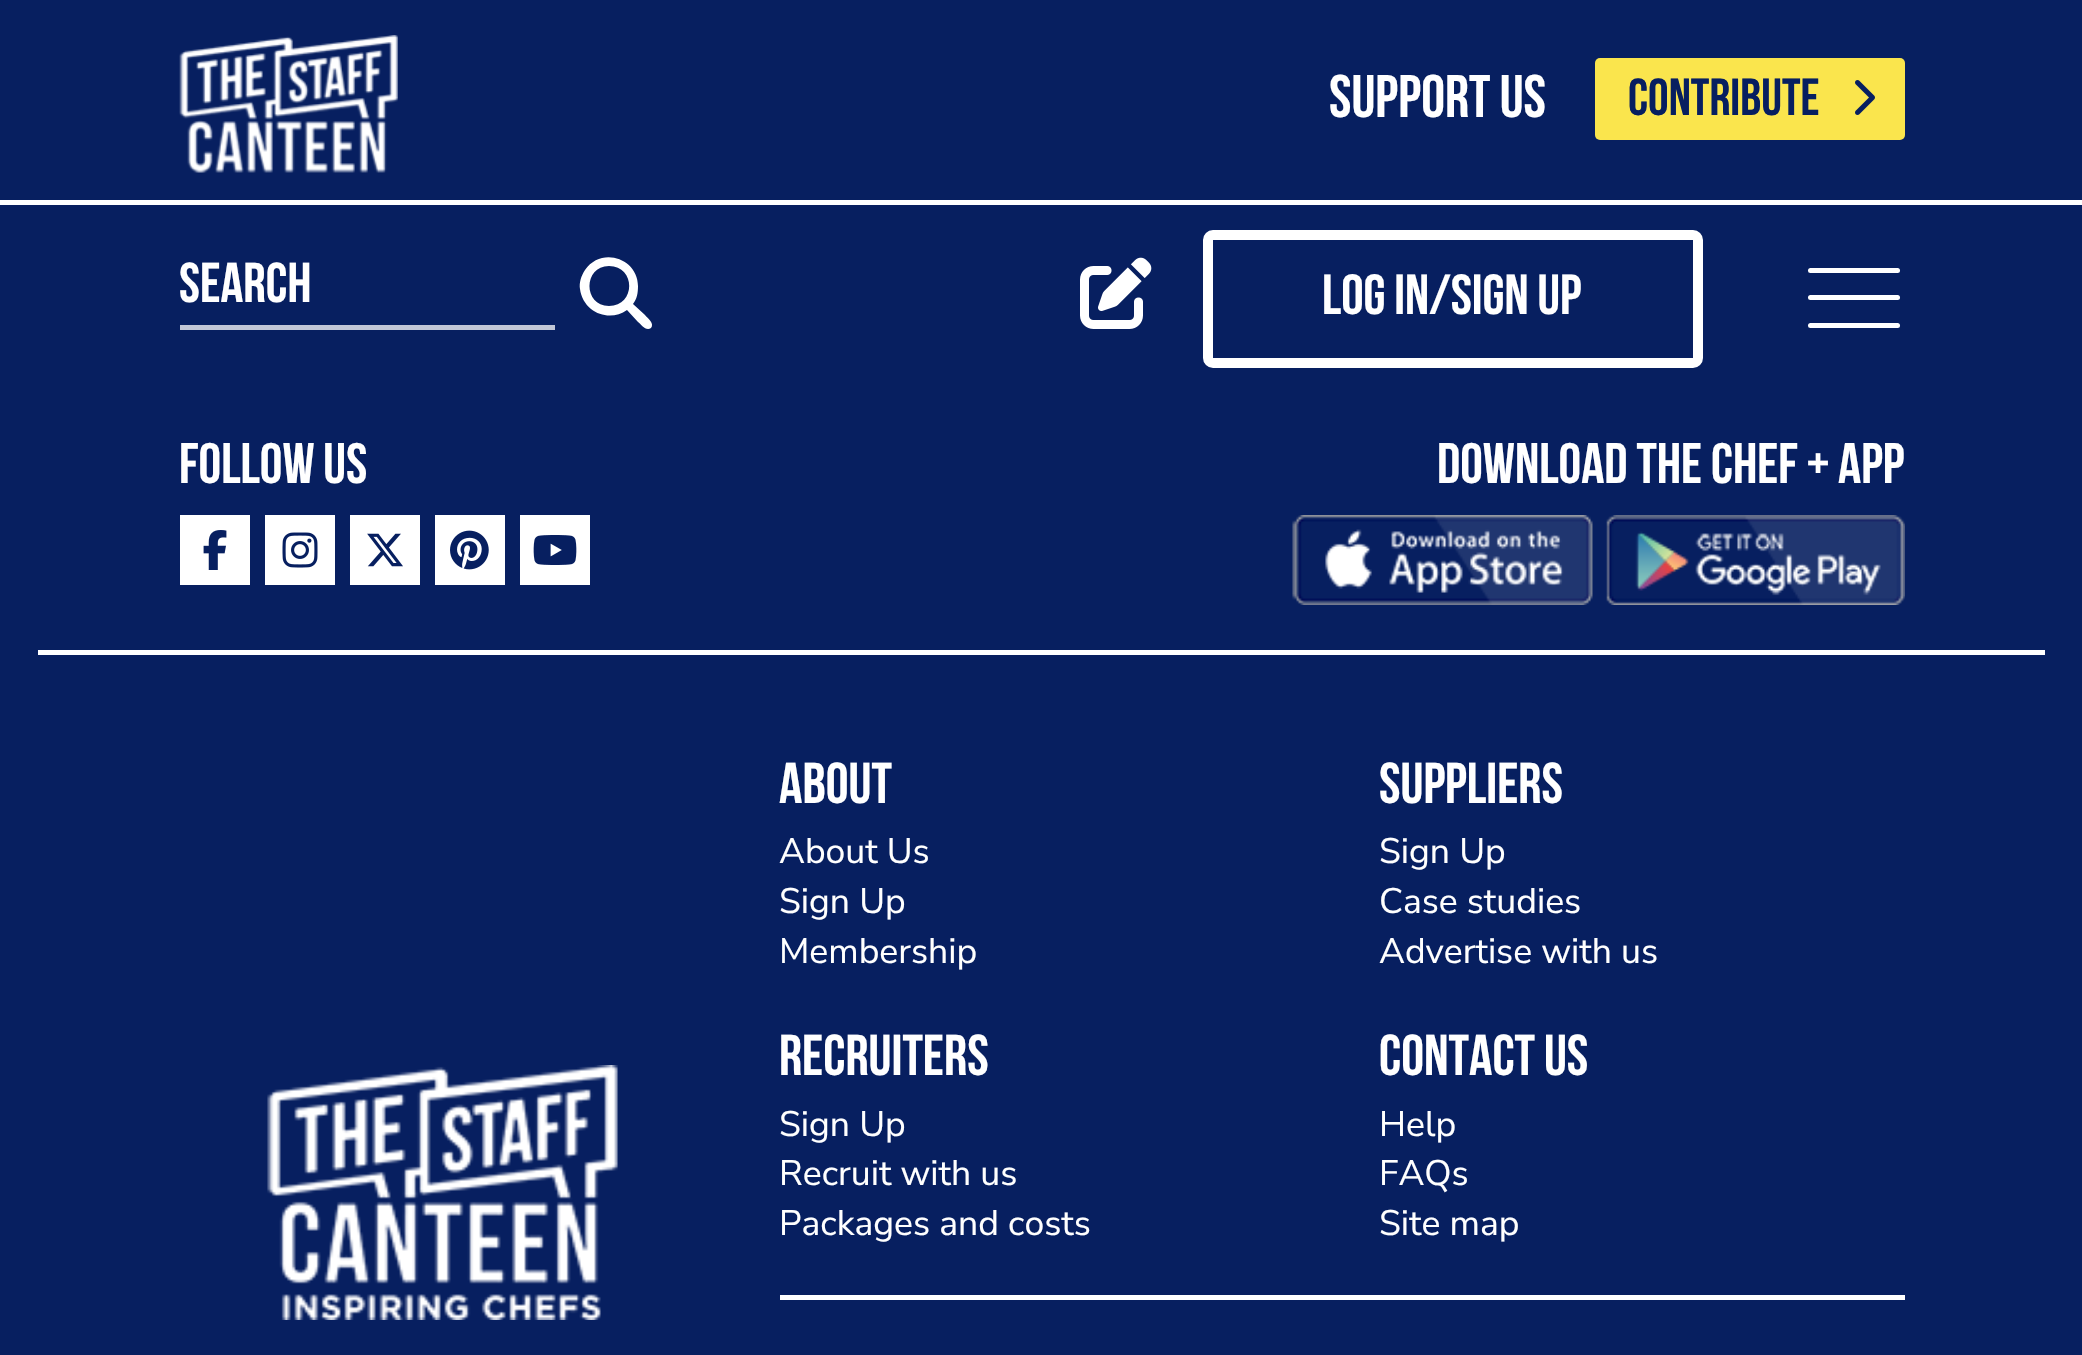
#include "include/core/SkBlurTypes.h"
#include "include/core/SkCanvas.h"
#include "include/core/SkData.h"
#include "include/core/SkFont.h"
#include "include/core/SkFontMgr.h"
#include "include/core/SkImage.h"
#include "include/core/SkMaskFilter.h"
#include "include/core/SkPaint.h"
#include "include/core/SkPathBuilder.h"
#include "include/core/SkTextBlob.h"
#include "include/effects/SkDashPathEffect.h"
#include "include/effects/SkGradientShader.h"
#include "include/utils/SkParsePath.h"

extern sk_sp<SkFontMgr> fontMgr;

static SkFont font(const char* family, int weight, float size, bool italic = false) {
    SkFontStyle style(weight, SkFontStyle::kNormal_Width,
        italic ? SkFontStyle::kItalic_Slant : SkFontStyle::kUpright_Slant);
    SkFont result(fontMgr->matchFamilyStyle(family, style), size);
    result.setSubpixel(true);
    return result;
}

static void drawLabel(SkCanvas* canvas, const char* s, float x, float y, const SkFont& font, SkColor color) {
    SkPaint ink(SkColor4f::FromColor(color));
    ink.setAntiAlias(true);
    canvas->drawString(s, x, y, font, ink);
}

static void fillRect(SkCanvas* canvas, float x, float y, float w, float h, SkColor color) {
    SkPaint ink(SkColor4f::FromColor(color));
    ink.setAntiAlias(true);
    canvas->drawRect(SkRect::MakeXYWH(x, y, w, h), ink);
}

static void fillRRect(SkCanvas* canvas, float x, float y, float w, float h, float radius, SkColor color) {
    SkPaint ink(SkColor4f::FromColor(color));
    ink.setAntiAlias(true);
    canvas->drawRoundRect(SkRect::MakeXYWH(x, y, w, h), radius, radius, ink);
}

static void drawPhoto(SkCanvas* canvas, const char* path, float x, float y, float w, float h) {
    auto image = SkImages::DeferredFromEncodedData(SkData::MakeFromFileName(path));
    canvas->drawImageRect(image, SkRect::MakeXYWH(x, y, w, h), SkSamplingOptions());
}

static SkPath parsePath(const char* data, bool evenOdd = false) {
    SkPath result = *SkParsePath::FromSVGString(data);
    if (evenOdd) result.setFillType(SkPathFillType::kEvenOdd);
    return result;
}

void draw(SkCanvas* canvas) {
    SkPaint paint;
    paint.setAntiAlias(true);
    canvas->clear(0xFF071F60);
    drawPhoto(canvas, "assets/img1.png", 179, 35, 219, 138);
    SkFont font1 = font("Bebas Neue", 700, 60);
    drawLabel(canvas, "SUPPORT US", 1329, 117, font1, 0xFFFFFFFF);
    fillRRect(canvas, 1595, 58, 310, 82, 5, 0xFFFAE54D);
    SkFont font2 = font("Bebas Neue", 700, 52);
    drawLabel(canvas, "CONTRIBUTE", 1628, 115, font2, 0xFF071F60);
    drawPhoto(canvas, "assets/img2.png", 1855, 80, 20, 35);
    fillRect(canvas, 0, 200, 2082, 5, 0xFFFFFFFF);
    fillRect(canvas, 180, 325, 375, 5, 0xFFC1C7D7);
    SkFont font3 = font("Bebas Neue", 700, 56);
    drawLabel(canvas, "search", 179, 302, font3, 0xFFFFFFFF);
    paint.setColor(0xFFFFFFFF);
    canvas->drawPath(parsePath("M638 286C638 293 637 299 633 304L645 315C647 318 655 323 651 328C646 332 641 324 638 322L627 310C616 318 601 317 591 309C585 304 581 297 580 289C579 283 581 276 585 270C601 246 638 258 638 286ZM609 306C636 306 636 266 609 266C583 266 583 306 609 306Z"), paint);
    drawPhoto(canvas, "assets/img3.png", 1080, 257, 72, 72);
    paint.setStroke(true);
    paint.setStrokeWidth(10);
    canvas->drawRoundRect(SkRect::MakeXYWH(1208, 235, 490, 128), 5, 5, paint);
    SkFont font4 = font("Bebas Neue", 700, 56.5f);
    drawLabel(canvas, "Log in/Sign up", 1322, 314, font4, 0xFFFFFFFF);
    fillRRect(canvas, 1808, 268, 92, 5, 2.5f, 0xFFFFFFFF);
    fillRRect(canvas, 1808, 295, 92, 5, 2.5f, 0xFFFFFFFF);
    fillRRect(canvas, 1808, 323, 92, 5, 2.5f, 0xFFFFFFFF);
    SkFont font5 = font("Bebas Neue", 700, 57);
    drawLabel(canvas, "Follow Us", 179, 483, font5, 0xFFFFFFFF);
    fillRect(canvas, 180, 515, 70, 70, 0xFFFFFFFF);
    drawPhoto(canvas, "assets/img4.png", 203, 530, 24, 40);
    fillRect(canvas, 265, 515, 70, 70, 0xFFFFFFFF);
    drawPhoto(canvas, "assets/img5.png", 282, 532, 36, 36);
    fillRect(canvas, 350, 515, 70, 70, 0xFFFFFFFF);
    drawPhoto(canvas, "assets/img6.png", 367, 533, 36, 34);
    fillRect(canvas, 435, 515, 70, 70, 0xFFFFFFFF);
    drawPhoto(canvas, "assets/img7.png", 450, 530, 39, 40);
    fillRect(canvas, 520, 515, 70, 70, 0xFFFFFFFF);
    drawPhoto(canvas, "assets/img8.png", 533, 535, 44, 30);
    drawLabel(canvas, "Download the Chef + app", 1437, 483, font5, 0xFFFFFFFF);
    drawPhoto(canvas, "assets/img9.png", 1292, 515, 301, 90);
    drawPhoto(canvas, "assets/img10.png", 1606, 515, 299, 90);
    fillRect(canvas, 38, 650, 2007, 5, 0xFFFFFFFF);
    drawPhoto(canvas, "assets/img11.png", 267, 1065, 351, 255);
    SkFont font6 = font("Bebas Neue", 700, 57.5f);
    drawLabel(canvas, "About", 779, 803, font6, 0xFFFFFFFF);
    SkFont font7 = font("Nunito Sans", 200, 35.5f);
    drawLabel(canvas, "About Us", 779, 863, font7, 0xFFFFFFFF);
    drawLabel(canvas, "Sign Up", 779, 913, font7, 0xFFFFFFFF);
    drawLabel(canvas, "Membership", 779, 963, font7, 0xFFFFFFFF);
    drawLabel(canvas, "Suppliers", 1379, 803, font6, 0xFFFFFFFF);
    drawLabel(canvas, "Sign Up", 1379, 863, font7, 0xFFFFFFFF);
    drawLabel(canvas, "Case studies", 1379, 913, font7, 0xFFFFFFFF);
    drawLabel(canvas, "Advertise with us", 1379, 963, font7, 0xFFFFFFFF);
    drawLabel(canvas, "Recruiters", 779, 1075, font6, 0xFFFFFFFF);
    drawLabel(canvas, "Sign Up", 779, 1136, font7, 0xFFFFFFFF);
    drawLabel(canvas, "Recruit with us", 779, 1185, font7, 0xFFFFFFFF);
    drawLabel(canvas, "Packages and costs", 779, 1235, font7, 0xFFFFFFFF);
    drawLabel(canvas, "Contact Us", 1379, 1075, font6, 0xFFFFFFFF);
    drawLabel(canvas, "Help", 1379, 1136, font7, 0xFFFFFFFF);
    drawLabel(canvas, "FAQs", 1379, 1185, font7, 0xFFFFFFFF);
    drawLabel(canvas, "Site map", 1379, 1235, font7, 0xFFFFFFFF);
    fillRect(canvas, 780, 1295, 1125, 5, 0xFFFFFFFF);
}
